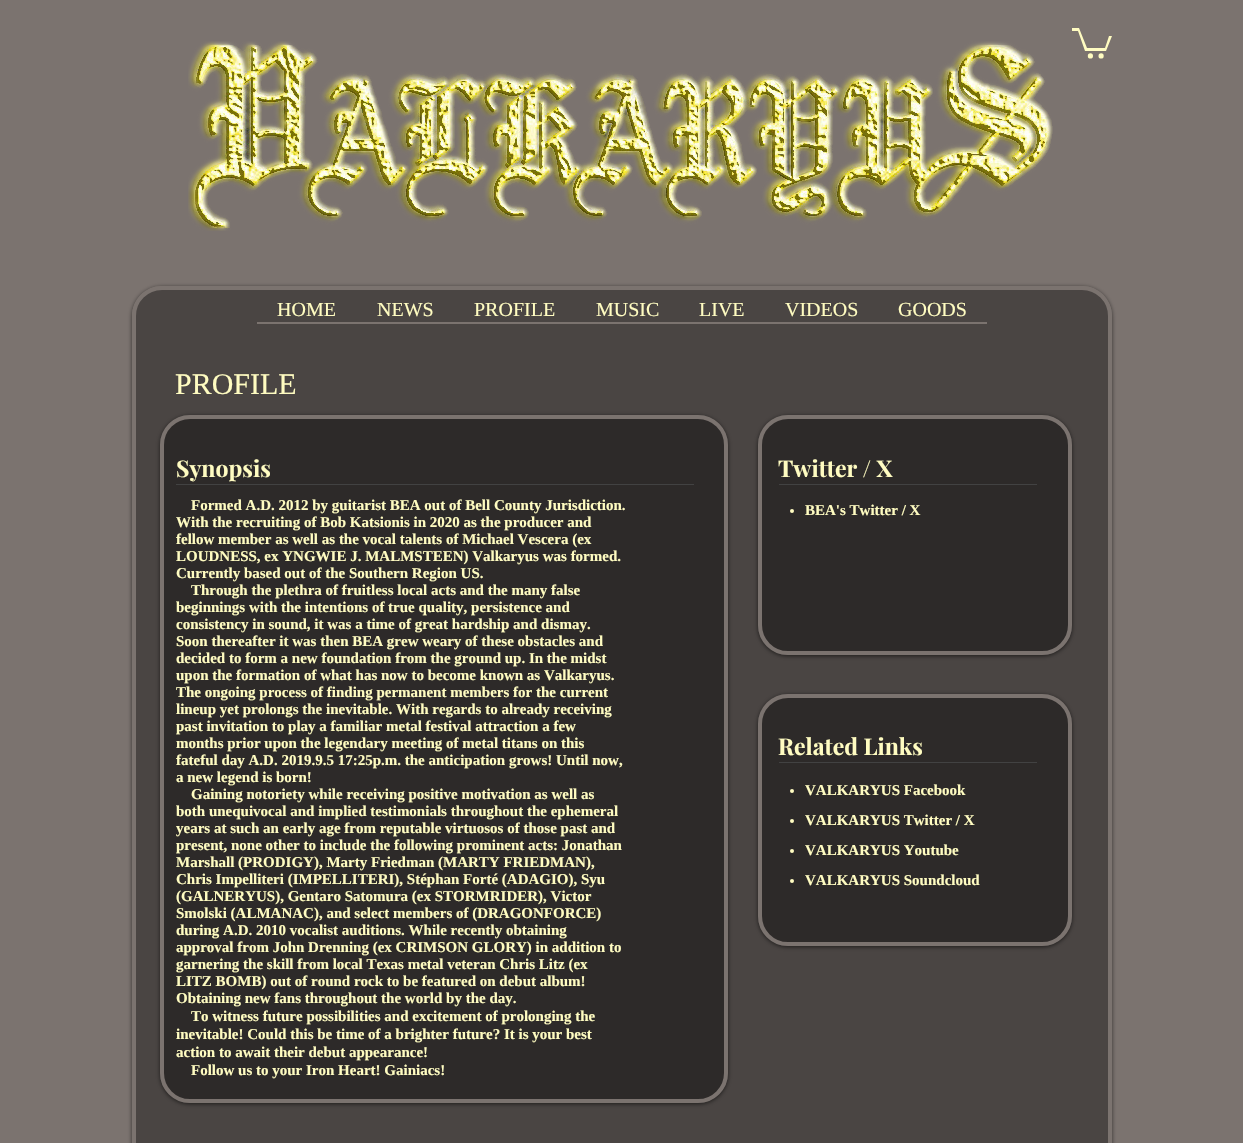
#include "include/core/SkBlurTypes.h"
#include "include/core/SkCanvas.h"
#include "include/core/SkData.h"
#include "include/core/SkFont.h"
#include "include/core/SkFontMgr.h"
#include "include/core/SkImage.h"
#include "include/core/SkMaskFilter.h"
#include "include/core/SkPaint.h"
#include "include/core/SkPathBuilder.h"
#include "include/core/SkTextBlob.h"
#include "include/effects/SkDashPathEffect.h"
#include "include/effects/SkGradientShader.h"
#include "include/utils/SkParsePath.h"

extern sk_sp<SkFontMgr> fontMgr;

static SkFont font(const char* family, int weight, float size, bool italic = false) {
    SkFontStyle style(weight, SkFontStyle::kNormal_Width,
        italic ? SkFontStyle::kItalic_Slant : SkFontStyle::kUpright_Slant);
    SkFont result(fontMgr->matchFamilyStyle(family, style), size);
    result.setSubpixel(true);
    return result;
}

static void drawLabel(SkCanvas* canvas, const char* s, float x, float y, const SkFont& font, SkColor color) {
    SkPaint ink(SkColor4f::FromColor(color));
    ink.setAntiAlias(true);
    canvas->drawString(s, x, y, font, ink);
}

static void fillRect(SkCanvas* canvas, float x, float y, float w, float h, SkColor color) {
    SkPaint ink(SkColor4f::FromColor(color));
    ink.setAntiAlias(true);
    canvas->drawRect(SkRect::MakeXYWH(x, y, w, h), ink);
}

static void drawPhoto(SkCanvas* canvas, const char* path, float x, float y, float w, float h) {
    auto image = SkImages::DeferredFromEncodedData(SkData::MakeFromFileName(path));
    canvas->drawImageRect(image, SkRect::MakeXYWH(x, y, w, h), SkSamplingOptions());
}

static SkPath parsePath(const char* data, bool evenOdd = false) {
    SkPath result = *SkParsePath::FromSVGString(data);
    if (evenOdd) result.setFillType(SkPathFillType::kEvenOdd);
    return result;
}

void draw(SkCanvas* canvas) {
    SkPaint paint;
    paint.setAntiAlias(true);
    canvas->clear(0xFF7B736F);
    drawPhoto(canvas, "assets/img1.png", 188, 41, 864, 190);
    paint.setColor(0xFFFFFCC1);
    canvas->drawPath(parsePath("M1112 36L1106 51H1085L1078 31H1072V28H1079L1087 48H1105L1109 36"), paint);
    canvas->drawCircle(1101.1f, 55.9f, 2.6f, paint);
    canvas->drawCircle(1090.4f, 55.9f, 2.6f, paint);
    drawPhoto(canvas, "assets/img2.png", 192, 44, 861, 185);
    canvas->save();
    canvas->clipPath(parsePath("M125 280H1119V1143H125ZM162 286H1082C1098.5 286 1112 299.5 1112 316V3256C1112 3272.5 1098.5 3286 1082 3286H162C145.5 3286 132 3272.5 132 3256V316C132 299.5 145.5 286 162 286Z", true), true);
    paint.setColor(0x99000000);
    paint.setMaskFilter(SkMaskFilter::MakeBlur(kNormal_SkBlurStyle, 2));
    canvas->drawRoundRect(SkRect::MakeXYWH(132, 287, 980, 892), 30, 30, paint);
    paint.setMaskFilter(nullptr);
    canvas->restore();
    paint.setColor(0x66000000);
    canvas->drawRoundRect(SkRect::MakeXYWH(134, 288, 976, 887), 28, 28, paint);
    paint.setStroke(true);
    paint.setStrokeWidth(4);
    paint.setColor(0xFF7B736F);
    canvas->drawRoundRect(SkRect::MakeXYWH(134, 288, 976, 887), 28, 28, paint);
    fillRect(canvas, 257, 322, 730, 2, 0xFF7B736F);
    SkFont font1 = font("Liberation Serif", 400, 20);
    drawLabel(canvas, "HOME", 277, 316, font1, 0xFFFFFCC1);
    drawLabel(canvas, "NEWS", 377, 316, font1, 0xFFFFFCC1);
    drawLabel(canvas, "PROFILE", 474, 316, font1, 0xFFFFFCC1);
    drawLabel(canvas, "MUSIC", 596, 316, font1, 0xFFFFFCC1);
    drawLabel(canvas, "LIVE", 699, 316, font1, 0xFFFFFCC1);
    drawLabel(canvas, "VIDEOS", 785, 316, font1, 0xFFFFFCC1);
    drawLabel(canvas, "GOODS", 898, 316, font1, 0xFFFFFCC1);
    SkFont font2 = font("Liberation Serif", 400, 30);
    drawLabel(canvas, "PROFILE", 175, 394, font2, 0xFFFFFCC1);
    canvas->save();
    canvas->clipPath(parsePath("M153 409H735V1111H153ZM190 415H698C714.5 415 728 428.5 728 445V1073C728 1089.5 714.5 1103 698 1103H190C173.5 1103 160 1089.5 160 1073V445C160 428.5 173.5 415 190 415Z", true), true);
    paint.setStroke(false);
    paint.setColor(0x99000000);
    paint.setMaskFilter(SkMaskFilter::MakeBlur(kNormal_SkBlurStyle, 2));
    canvas->drawRoundRect(SkRect::MakeXYWH(160, 416, 568, 688), 30, 30, paint);
    paint.setMaskFilter(nullptr);
    canvas->restore();
    paint.setColor(0x66000000);
    canvas->drawRoundRect(SkRect::MakeXYWH(162, 417, 564, 684), 28, 28, paint);
    paint.setStroke(true);
    paint.setColor(0xFF7B736F);
    canvas->drawRoundRect(SkRect::MakeXYWH(162, 417, 564, 684), 28, 28, paint);
    SkFont font3 = font("Playfair Display", 700, 23);
    drawLabel(canvas, "Synopsis", 176, 477, font3, 0xFFFFFCC1);
    fillRect(canvas, 176, 484, 518, 1, 0xFF424242);
    SkFont font4 = font("Liberation Serif", 700, 15);
    drawLabel(canvas, "Formed A.D. 2012 by guitarist BEA out of Bell County Jurisdiction.", 191, 510, font4, 0xFFFFFCC1);
    drawLabel(canvas, "With the recruiting of Bob Katsionis in 2020 as the producer and", 176, 527, font4, 0xFFFFFCC1);
    drawLabel(canvas, "fellow member as well as the vocal talents of Michael Vescera (ex", 176, 544, font4, 0xFFFFFCC1);
    drawLabel(canvas, "LOUDNESS, ex YNGWIE J. MALMSTEEN) Valkaryus was formed.", 176, 561, font4, 0xFFFFFCC1);
    drawLabel(canvas, "Currently based out of the Southern Region US.", 176, 578, font4, 0xFFFFFCC1);
    drawLabel(canvas, "Through the plethra of fruitless local acts and the many false", 191, 595, font4, 0xFFFFFCC1);
    drawLabel(canvas, "beginnings with the intentions of true quality, persistence and", 176, 612, font4, 0xFFFFFCC1);
    drawLabel(canvas, "consistency in sound, it was a time of great hardship and dismay.", 176, 629, font4, 0xFFFFFCC1);
    drawLabel(canvas, "Soon thereafter it was then BEA grew weary of these obstacles and", 176, 646, font4, 0xFFFFFCC1);
    drawLabel(canvas, "decided to form a new foundation from the ground up. In the midst", 176, 663, font4, 0xFFFFFCC1);
    drawLabel(canvas, "upon the formation of what has now to become known as Valkaryus.", 176, 680, font4, 0xFFFFFCC1);
    drawLabel(canvas, "The ongoing process of finding permanent members for the current", 176, 697, font4, 0xFFFFFCC1);
    drawLabel(canvas, "lineup yet prolongs the inevitable. With regards to already receiving", 176, 714, font4, 0xFFFFFCC1);
    drawLabel(canvas, "past invitation to play a familiar metal festival attraction a few", 176, 731, font4, 0xFFFFFCC1);
    drawLabel(canvas, "months prior upon the legendary meeting of metal titans on this", 176, 748, font4, 0xFFFFFCC1);
    drawLabel(canvas, "fateful day A.D. 2019.9.5 17:25p.m. the anticipation grows! Until now,", 176, 765, font4, 0xFFFFFCC1);
    drawLabel(canvas, "a new legend is born!", 176, 782, font4, 0xFFFFFCC1);
    drawLabel(canvas, "Gaining notoriety while receiving positive motivation as well as", 191, 799, font4, 0xFFFFFCC1);
    drawLabel(canvas, "both unequivocal and implied testimonials throughout the ephemeral", 176, 816, font4, 0xFFFFFCC1);
    drawLabel(canvas, "years at such an early age from reputable virtuosos of those past and", 176, 833, font4, 0xFFFFFCC1);
    drawLabel(canvas, "present, none other to include the following prominent acts: Jonathan", 176, 850, font4, 0xFFFFFCC1);
    drawLabel(canvas, "Marshall (PRODIGY), Marty Friedman (MARTY FRIEDMAN),", 176, 867, font4, 0xFFFFFCC1);
    drawLabel(canvas, "Chris Impelliteri (IMPELLITERI), Stéphan Forté (ADAGIO), Syu", 176, 884, font4, 0xFFFFFCC1);
    drawLabel(canvas, "(GALNERYUS), Gentaro Satomura (ex STORMRIDER), Victor", 176, 901, font4, 0xFFFFFCC1);
    drawLabel(canvas, "Smolski (ALMANAC), and select members of (DRAGONFORCE)", 176, 918, font4, 0xFFFFFCC1);
    drawLabel(canvas, "during A.D. 2010 vocalist auditions. While recently obtaining", 176, 935, font4, 0xFFFFFCC1);
    drawLabel(canvas, "approval from John Drenning (ex CRIMSON GLORY) in addition to", 176, 952, font4, 0xFFFFFCC1);
    drawLabel(canvas, "garnering the skill from local Texas metal veteran Chris Litz (ex", 176, 969, font4, 0xFFFFFCC1);
    drawLabel(canvas, "LITZ BOMB) out of round rock to be featured on debut album!", 176, 986, font4, 0xFFFFFCC1);
    drawLabel(canvas, "Obtaining new fans throughout the world by the day.", 176, 1003, font4, 0xFFFFFCC1);
    drawLabel(canvas, "To witness future possibilities and excitement of prolonging the", 191, 1021, font4, 0xFFFFFCC1);
    drawLabel(canvas, "inevitable! Could this be time of a brighter future? It is your best", 176, 1039, font4, 0xFFFFFCC1);
    drawLabel(canvas, "action to await their debut appearance!", 176, 1057, font4, 0xFFFFFCC1);
    drawLabel(canvas, "Follow us to your Iron Heart! Gainiacs!", 191, 1075, font4, 0xFFFFFCC1);
    canvas->save();
    canvas->clipPath(parsePath("M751 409H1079V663H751ZM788 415H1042C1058.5 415 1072 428.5 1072 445V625C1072 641.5 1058.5 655 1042 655H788C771.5 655 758 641.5 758 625V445C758 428.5 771.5 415 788 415Z", true), true);
    paint.setStroke(false);
    paint.setColor(0x99000000);
    paint.setMaskFilter(SkMaskFilter::MakeBlur(kNormal_SkBlurStyle, 2));
    canvas->drawRoundRect(SkRect::MakeXYWH(758, 416, 314, 240), 30, 30, paint);
    paint.setMaskFilter(nullptr);
    canvas->restore();
    paint.setColor(0x66000000);
    canvas->drawRoundRect(SkRect::MakeXYWH(760, 417, 310, 236), 28, 28, paint);
    paint.setStroke(true);
    paint.setColor(0xFF7B736F);
    canvas->drawRoundRect(SkRect::MakeXYWH(760, 417, 310, 236), 28, 28, paint);
    drawLabel(canvas, "Twitter / X", 778, 477, font3, 0xFFFFFCC1);
    fillRect(canvas, 779, 484, 258, 1, 0xFF424242);
    paint.setStroke(false);
    paint.setColor(0xFFFFFCC1);
    canvas->drawCircle(792, 511, 2, paint);
    drawLabel(canvas, "BEA's Twitter / X", 805, 515, font4, 0xFFFFFCC1);
    canvas->save();
    canvas->clipPath(parsePath("M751 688H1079V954H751ZM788 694H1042C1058.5 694 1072 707.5 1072 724V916C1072 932.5 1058.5 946 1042 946H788C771.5 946 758 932.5 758 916V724C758 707.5 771.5 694 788 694Z", true), true);
    paint.setColor(0x99000000);
    paint.setMaskFilter(SkMaskFilter::MakeBlur(kNormal_SkBlurStyle, 2));
    canvas->drawRoundRect(SkRect::MakeXYWH(758, 695, 314, 252), 30, 30, paint);
    paint.setMaskFilter(nullptr);
    canvas->restore();
    paint.setColor(0x66000000);
    canvas->drawRoundRect(SkRect::MakeXYWH(760, 696, 310, 248), 28, 28, paint);
    paint.setStroke(true);
    paint.setColor(0xFF7B736F);
    canvas->drawRoundRect(SkRect::MakeXYWH(760, 696, 310, 248), 28, 28, paint);
    drawLabel(canvas, "Related Links", 778, 755, font3, 0xFFFFFCC1);
    fillRect(canvas, 779, 762, 258, 1, 0xFF424242);
    paint.setStroke(false);
    paint.setColor(0xFFFFFCC1);
    canvas->drawCircle(792, 791, 2, paint);
    drawLabel(canvas, "VALKARYUS Facebook", 805, 795, font4, 0xFFFFFCC1);
    canvas->drawCircle(792, 821, 2, paint);
    drawLabel(canvas, "VALKARYUS Twitter / X", 805, 825, font4, 0xFFFFFCC1);
    canvas->drawCircle(792, 851, 2, paint);
    drawLabel(canvas, "VALKARYUS Youtube", 805, 855, font4, 0xFFFFFCC1);
    canvas->drawCircle(792, 881, 2, paint);
    drawLabel(canvas, "VALKARYUS Soundcloud", 805, 885, font4, 0xFFFFFCC1);
}
